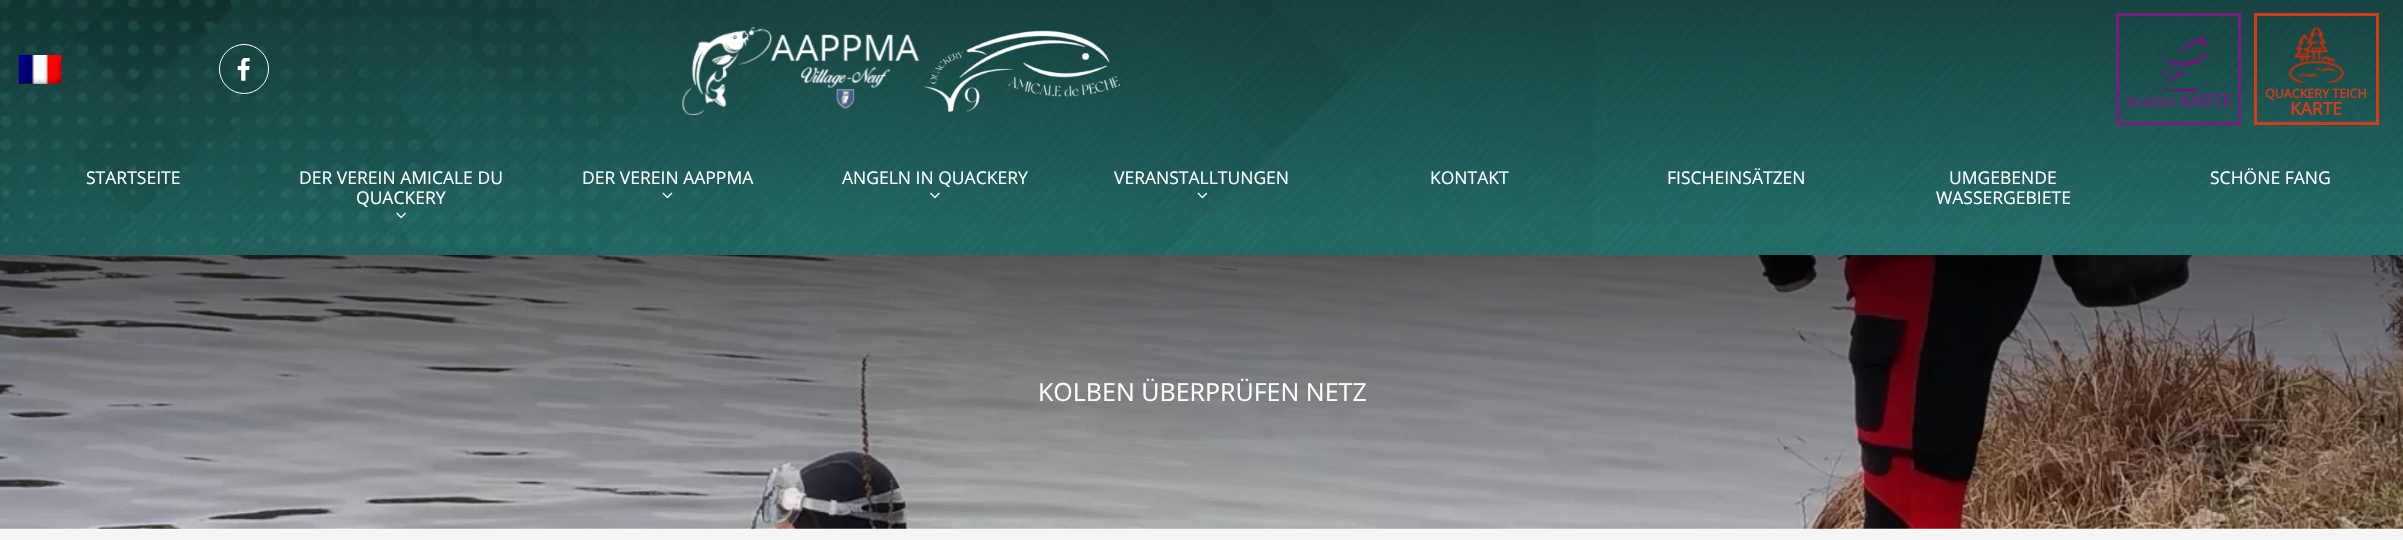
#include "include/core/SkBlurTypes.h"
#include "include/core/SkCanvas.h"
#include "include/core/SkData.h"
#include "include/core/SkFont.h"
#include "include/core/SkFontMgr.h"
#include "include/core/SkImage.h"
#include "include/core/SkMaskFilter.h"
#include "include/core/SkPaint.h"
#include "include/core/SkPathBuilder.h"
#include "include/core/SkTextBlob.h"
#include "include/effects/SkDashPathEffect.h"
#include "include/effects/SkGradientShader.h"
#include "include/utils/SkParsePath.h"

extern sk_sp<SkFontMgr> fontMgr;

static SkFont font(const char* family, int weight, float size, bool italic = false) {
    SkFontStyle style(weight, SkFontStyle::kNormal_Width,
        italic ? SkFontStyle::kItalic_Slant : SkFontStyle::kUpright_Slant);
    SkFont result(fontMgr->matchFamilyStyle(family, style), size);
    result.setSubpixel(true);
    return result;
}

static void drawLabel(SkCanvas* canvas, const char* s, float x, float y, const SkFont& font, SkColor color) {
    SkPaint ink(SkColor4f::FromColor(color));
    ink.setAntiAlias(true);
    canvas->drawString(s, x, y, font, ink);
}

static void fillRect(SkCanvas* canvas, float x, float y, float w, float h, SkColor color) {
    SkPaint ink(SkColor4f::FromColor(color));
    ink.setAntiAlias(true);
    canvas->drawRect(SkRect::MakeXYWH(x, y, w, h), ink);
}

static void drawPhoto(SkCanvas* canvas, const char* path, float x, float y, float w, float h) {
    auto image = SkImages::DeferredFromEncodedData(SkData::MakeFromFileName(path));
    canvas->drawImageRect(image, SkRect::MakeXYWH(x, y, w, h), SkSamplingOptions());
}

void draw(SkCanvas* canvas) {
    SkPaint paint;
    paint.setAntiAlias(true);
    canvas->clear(0xFFF5F5F5);
    fillRect(canvas, 0, 528, 2403, 2, 0xFFFAFAFA);
    drawPhoto(canvas, "assets/img1.png", 0, 0, 2403, 255);
    drawPhoto(canvas, "assets/img2.png", 18, 55, 44, 29);
    paint.setStroke(true);
    paint.setStrokeWidth(1);
    paint.setColor(0xFFFFFFFF);
    canvas->drawCircle(244, 69, 24.5f, paint);
    drawPhoto(canvas, "assets/img3.png", 237, 58, 13, 23);
    drawPhoto(canvas, "assets/img4.png", 682, 27, 438, 88);
    paint.setStrokeWidth(3);
    paint.setColor(0xFF771E7E);
    canvas->drawRect(SkRect::MakeXYWH(2117.5f, 14.5f, 122, 109), paint);
    drawPhoto(canvas, "assets/img5.png", 2151, 36, 56, 56);
    SkFont font1 = font("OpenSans", 700, 12.5f);
    drawLabel(canvas, "BUNDES", 2126, 107, font1, 0xFF771E7E);
    SkFont font2 = font("OpenSans", 700, 17.5f);
    drawLabel(canvas, "KARTE", 2180, 107, font2, 0xFF771E7E);
    paint.setColor(0xFFD73A18);
    canvas->drawRect(SkRect::MakeXYWH(2255.5f, 14.5f, 122, 109), paint);
    drawPhoto(canvas, "assets/img6.png", 2288, 27, 56, 56);
    drawLabel(canvas, "QUACKERY TEICH", 2265, 98, font1, 0xFFD73A18);
    drawLabel(canvas, "KARTE", 2290, 115, font2, 0xFFD73A18);
    SkFont font3 = font("OpenSans", 400, 17.5f);
    drawLabel(canvas, "STARTSEITE", 86, 184, font3, 0xFFFFFFFF);
    drawLabel(canvas, "DER VEREIN AMICALE DU", 299, 184, font3, 0xFFFFFFFF);
    drawLabel(canvas, "QUACKERY", 356, 204, font3, 0xFFFFFFFF);
    drawPhoto(canvas, "assets/img7.png", 396, 212, 10, 7);
    drawLabel(canvas, "DER VEREIN AAPPMA", 582, 184, font3, 0xFFFFFFFF);
    drawPhoto(canvas, "assets/img8.png", 662, 192, 11, 7);
    drawLabel(canvas, "ANGELN IN QUACKERY", 842, 184, font3, 0xFFFFFFFF);
    drawPhoto(canvas, "assets/img9.png", 930, 192, 10, 7);
    drawLabel(canvas, "VERANSTALLTUNGEN", 1114, 184, font3, 0xFFFFFFFF);
    drawPhoto(canvas, "assets/img10.png", 1197, 192, 11, 7);
    drawLabel(canvas, "KONTAKT", 1430, 184, font3, 0xFFFFFFFF);
    drawLabel(canvas, "FISCHEINSÄTZEN", 1667, 184, font3, 0xFFFFFFFF);
    drawLabel(canvas, "UMGEBENDE", 1949, 184, font3, 0xFFFFFFFF);
    drawLabel(canvas, "WASSERGEBIETE", 1936, 204, font3, 0xFFFFFFFF);
    drawLabel(canvas, "SCHÖNE FANG", 2210, 184, font3, 0xFFFFFFFF);
    drawPhoto(canvas, "assets/img11.png", 0, 255, 2403, 274);
    paint.setStroke(false);
    {
        const SkColor colors[] = {0x00000000, 0xCC000000, 0xE6000000};
        const float stops[] = {0, 0.75f, 1};
        const SkPoint ends[] = {{1202, 530}, {1202, 0}};
        paint.setShader(SkGradientShader::MakeLinear(ends, colors, stops, 3, SkTileMode::kClamp));
        paint.setAlpha(255);
    }
    canvas->drawRect(SkRect::MakeXYWH(0, 255, 2403, 264), paint);
    SkFont font4 = font("OpenSans", 400, 25);
    drawLabel(canvas, "KOLBEN ÜBERPRÜFEN NETZ", 1038, 401, font4, 0xFFFFFFFF);
}
